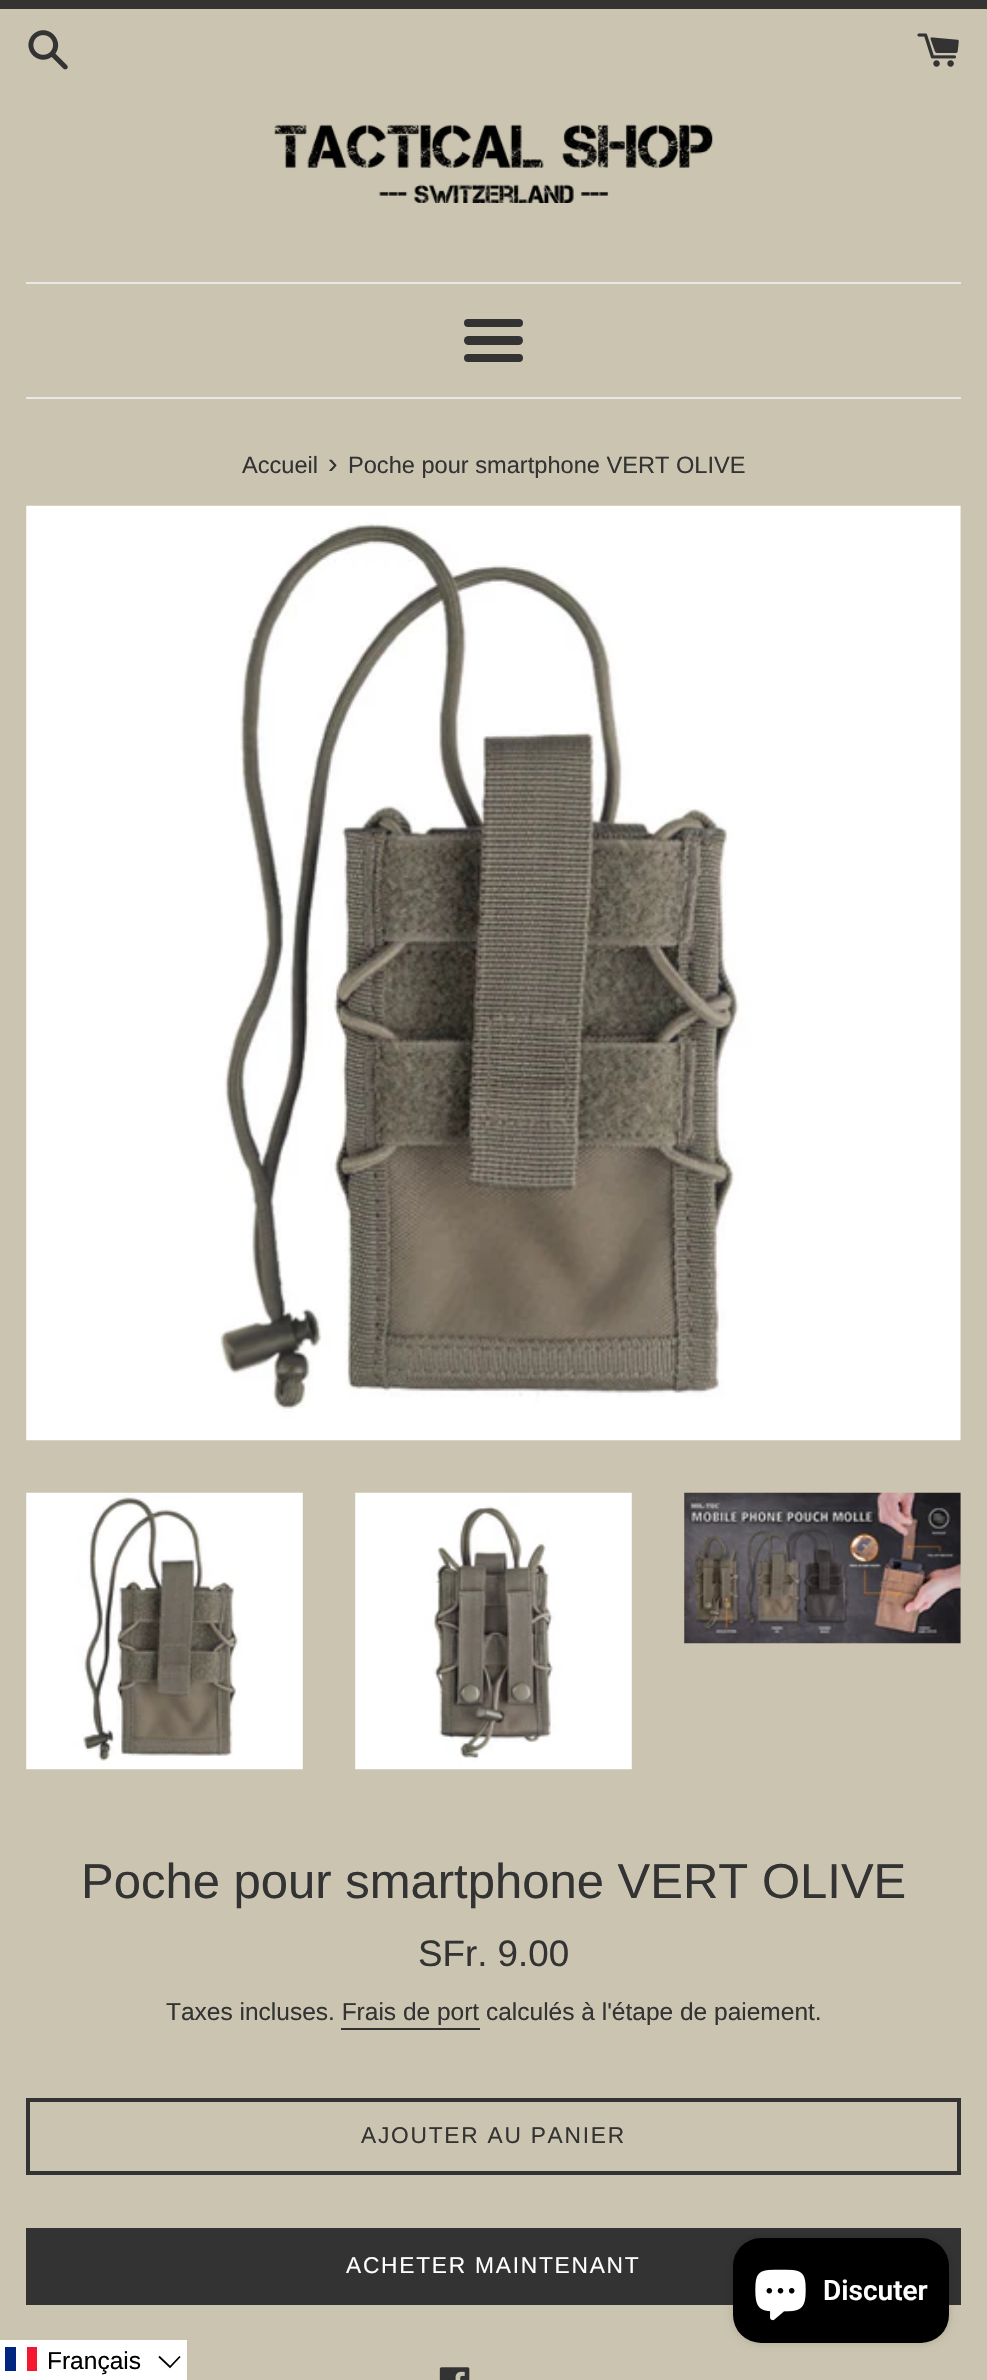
#include "include/core/SkBlurTypes.h"
#include "include/core/SkCanvas.h"
#include "include/core/SkData.h"
#include "include/core/SkFont.h"
#include "include/core/SkFontMgr.h"
#include "include/core/SkImage.h"
#include "include/core/SkMaskFilter.h"
#include "include/core/SkPaint.h"
#include "include/core/SkPathBuilder.h"
#include "include/core/SkTextBlob.h"
#include "include/effects/SkDashPathEffect.h"
#include "include/effects/SkGradientShader.h"
#include "include/utils/SkParsePath.h"

extern sk_sp<SkFontMgr> fontMgr;

static SkFont font(const char* family, int weight, float size, bool italic = false) {
    SkFontStyle style(weight, SkFontStyle::kNormal_Width,
        italic ? SkFontStyle::kItalic_Slant : SkFontStyle::kUpright_Slant);
    SkFont result(fontMgr->matchFamilyStyle(family, style), size);
    result.setSubpixel(true);
    return result;
}

static void drawLabel(SkCanvas* canvas, const char* s, float x, float y, const SkFont& font, SkColor color) {
    SkPaint ink(SkColor4f::FromColor(color));
    ink.setAntiAlias(true);
    canvas->drawString(s, x, y, font, ink);
}

static void drawTracked(SkCanvas* canvas, const char* s, float x, float y, const SkFont& font, const SkPaint& ink, float letter, float word) {
    std::vector<SkGlyphID> glyphs(font.countText(s, strlen(s), SkTextEncoding::kUTF8));
    std::vector<float> xs(glyphs.size());
    font.textToGlyphs(s, strlen(s), SkTextEncoding::kUTF8, glyphs);
    font.getXPos(glyphs, xs, x);
    float extra = 0;
    for (size_t i = 0; i < glyphs.size(); i++) {
        xs[i] += extra;
        extra += letter + word * (glyphs[i] == font.unicharToGlyph(' '));
    }
    canvas->drawTextBlob(SkTextBlob::MakeFromPosHGlyphs(glyphs, xs, y, font), 0, 0, ink);
}

static void fillRect(SkCanvas* canvas, float x, float y, float w, float h, SkColor color) {
    SkPaint ink(SkColor4f::FromColor(color));
    ink.setAntiAlias(true);
    canvas->drawRect(SkRect::MakeXYWH(x, y, w, h), ink);
}

static void fillRRect(SkCanvas* canvas, float x, float y, float w, float h, float radius, SkColor color) {
    SkPaint ink(SkColor4f::FromColor(color));
    ink.setAntiAlias(true);
    canvas->drawRoundRect(SkRect::MakeXYWH(x, y, w, h), radius, radius, ink);
}

static void drawPhoto(SkCanvas* canvas, const char* path, float x, float y, float w, float h) {
    auto image = SkImages::DeferredFromEncodedData(SkData::MakeFromFileName(path));
    canvas->drawImageRect(image, SkRect::MakeXYWH(x, y, w, h), SkSamplingOptions());
}

static SkPath parsePath(const char* data, bool evenOdd = false) {
    SkPath result = *SkParsePath::FromSVGString(data);
    if (evenOdd) result.setFillType(SkPathFillType::kEvenOdd);
    return result;
}

void draw(SkCanvas* canvas) {
    SkPaint paint;
    paint.setAntiAlias(true);
    canvas->clear(0xFFCAC4B0);
    fillRect(canvas, 0, 0, 987, 9, 0xFF333333);
    drawPhoto(canvas, "assets/img1.png", 28, 30, 40, 40);
    drawPhoto(canvas, "assets/img2.png", 917, 33, 42, 34);
    drawPhoto(canvas, "assets/img3.png", 274, 124, 439, 79);
    fillRect(canvas, 26, 282, 935, 2, 0xFFE8E8E8);
    fillRRect(canvas, 464, 319, 59, 8, 4, 0xFF333333);
    fillRRect(canvas, 464, 336, 59, 9, 4.5f, 0xFF333333);
    fillRRect(canvas, 464, 354, 59, 8, 4, 0xFF333333);
    fillRect(canvas, 26, 397, 935, 2, 0xFFE8E8E8);
    SkFont font1 = font("Liberation Sans", 400, 23.6f);
    drawLabel(canvas, "Accueil", 242, 473, font1, 0xFF333333);
    SkFont font2 = font("Liberation Sans", 400, 29);
    drawLabel(canvas, "›", 328, 473, font2, 0xFF333333);
    drawLabel(canvas, "Poche pour smartphone VERT OLIVE", 348, 473, font1, 0xFF333333);
    drawPhoto(canvas, "assets/img4.png", 26, 505, 935, 936);
    drawPhoto(canvas, "assets/img5.png", 26, 1492, 277, 278);
    drawPhoto(canvas, "assets/img6.png", 355, 1492, 277, 278);
    drawPhoto(canvas, "assets/img7.png", 684, 1492, 277, 152);
    SkFont font3 = font("Liberation Sans", 400, 49);
    drawLabel(canvas, "Poche pour smartphone VERT OLIVE", 81, 1898, font3, 0xFF333333);
    SkFont font4 = font("Liberation Sans", 400, 36.75f);
    drawLabel(canvas, "SFr. 9.00", 418, 1966, font4, 0xFF333333);
    SkFont font5 = font("Liberation Sans", 400, 24.5f);
    drawLabel(canvas, "Taxes incluses. Frais de port calculés à l'étape de paiement.", 166, 2020, font5, 0xFF333333);
    fillRect(canvas, 341, 2028, 139, 2, 0xFF333333);
    paint.setStroke(true);
    paint.setStrokeWidth(4);
    paint.setColor(0xFF333333);
    canvas->drawRect(SkRect::MakeXYWH(28, 2100, 931, 73), paint);
    SkFont font6 = font("Liberation Sans", 400, 22.75f);
    paint.setStroke(false);
    drawTracked(canvas, "AJOUTER AU PANIER", 361, 2143, font6, paint, 1.75f, 0);
    fillRect(canvas, 26, 2228, 935, 77, 0xFF333333);
    paint.setColor(0xFFFFFFFF);
    drawTracked(canvas, "ACHETER MAINTENANT", 346, 2273, font6, paint, 1.75f, 0);
    drawPhoto(canvas, "assets/img8.png", 439, 2367, 31, 13);
    paint.setColor(0x26000000);
    paint.setMaskFilter(SkMaskFilter::MakeBlur(kNormal_SkBlurStyle, 4.5f));
    canvas->drawRoundRect(SkRect::MakeXYWH(733, 2238, 216, 105), 28, 28, paint);
    paint.setMaskFilter(nullptr);
    fillRRect(canvas, 733, 2238, 216, 105, 28, 0xFF000000);
    drawPhoto(canvas, "assets/img9.png", 755, 2269, 51, 52);
    SkFont font7 = font("Roboto", 600, 28);
    drawLabel(canvas, "Discuter", 823, 2300, font7, 0xFFFFFFFF);
    fillRect(canvas, 0, 2340, 187, 40, 0xFFFFFFFF);
    fillRect(canvas, 5, 2347, 11, 24, 0xFF00267F);
    fillRect(canvas, 27, 2347, 10, 24, 0xFFF31830);
    drawLabel(canvas, "Français", 47, 2369, font5, 0xFF000000);
    paint.setStroke(true);
    paint.setStrokeWidth(1.8f);
    paint.setColor(0xFF000000);
    canvas->drawPath(parsePath("M159 2356.5L170 2367L180 2356.5"), paint);
}
